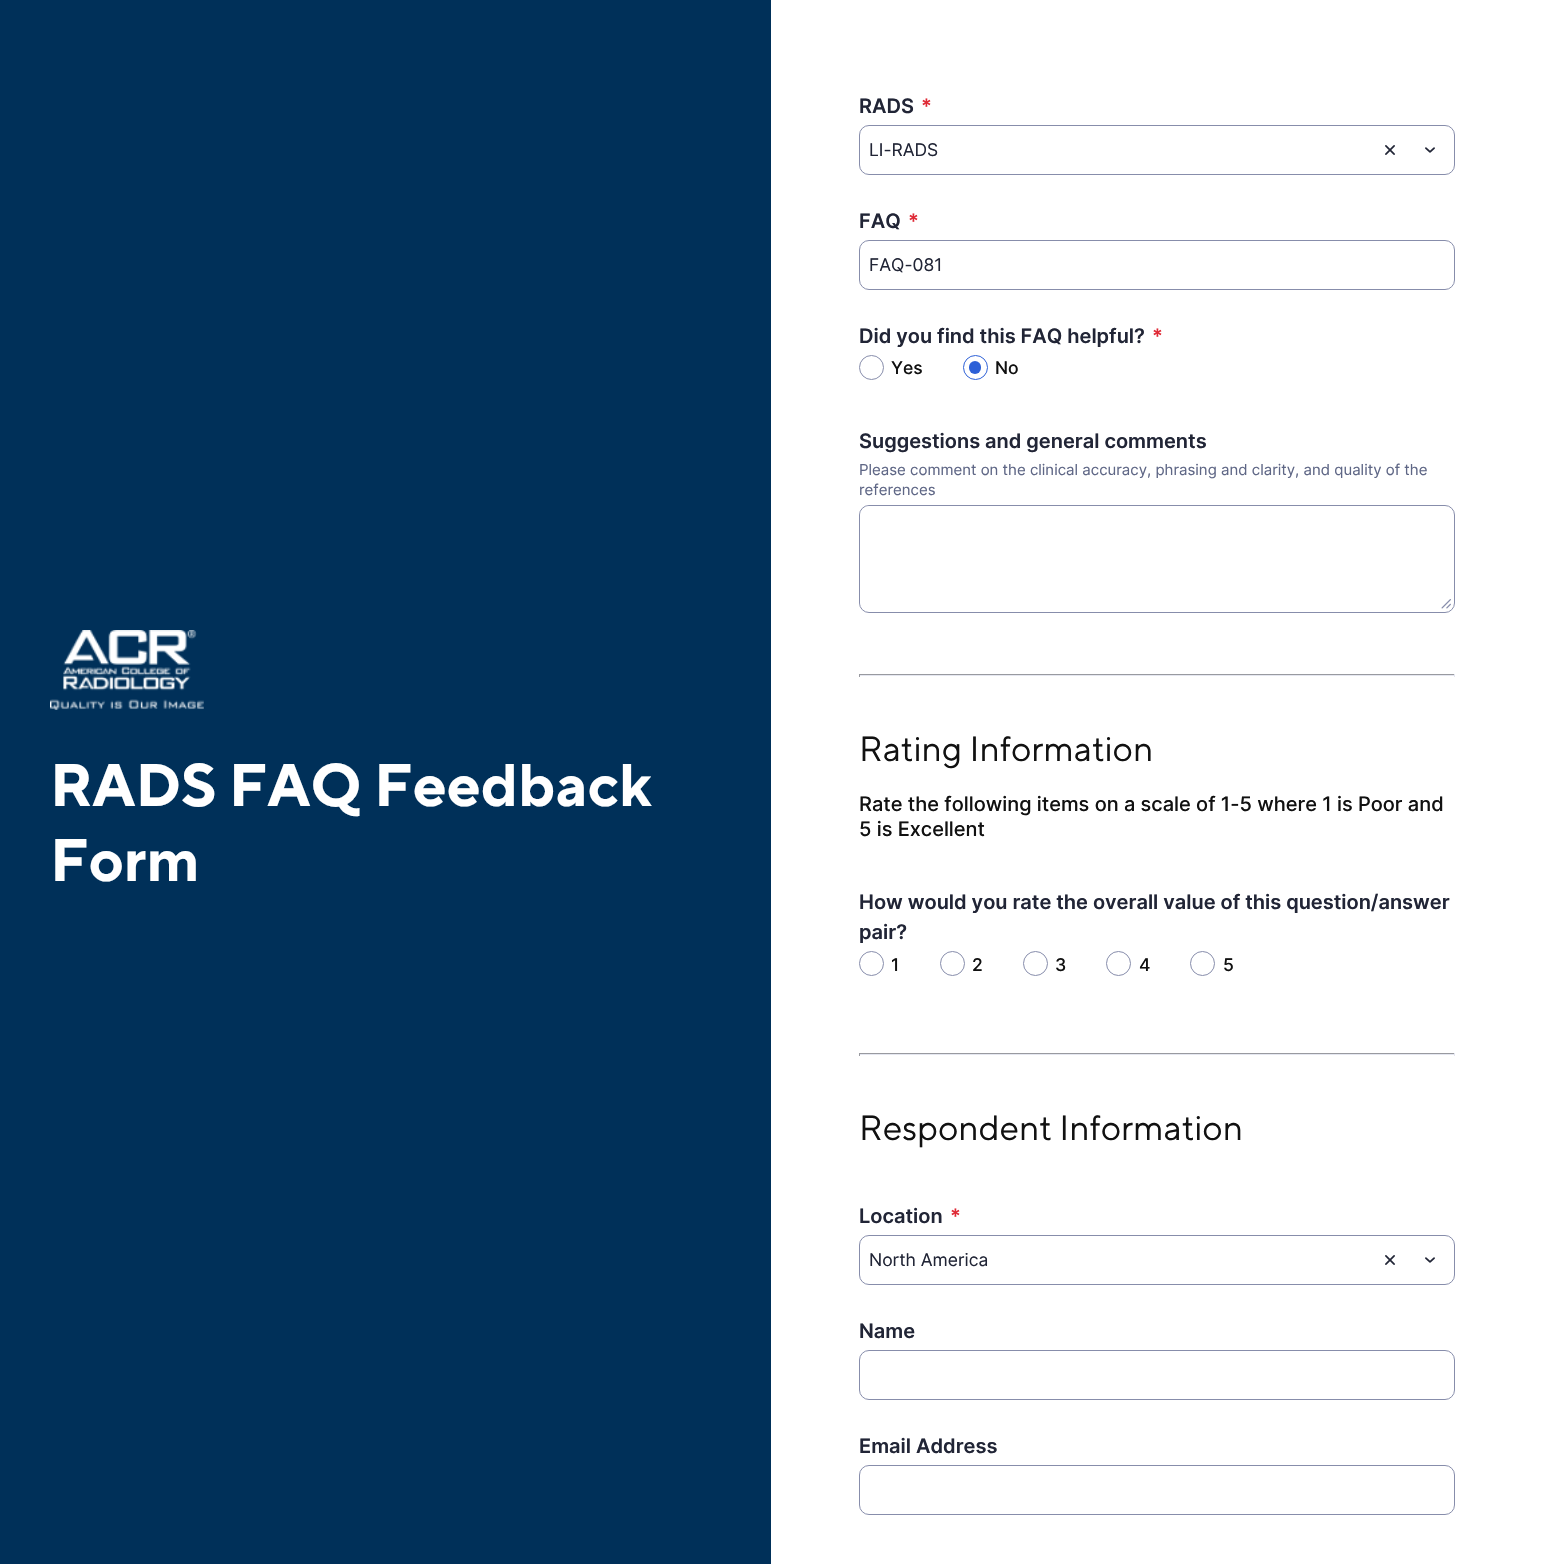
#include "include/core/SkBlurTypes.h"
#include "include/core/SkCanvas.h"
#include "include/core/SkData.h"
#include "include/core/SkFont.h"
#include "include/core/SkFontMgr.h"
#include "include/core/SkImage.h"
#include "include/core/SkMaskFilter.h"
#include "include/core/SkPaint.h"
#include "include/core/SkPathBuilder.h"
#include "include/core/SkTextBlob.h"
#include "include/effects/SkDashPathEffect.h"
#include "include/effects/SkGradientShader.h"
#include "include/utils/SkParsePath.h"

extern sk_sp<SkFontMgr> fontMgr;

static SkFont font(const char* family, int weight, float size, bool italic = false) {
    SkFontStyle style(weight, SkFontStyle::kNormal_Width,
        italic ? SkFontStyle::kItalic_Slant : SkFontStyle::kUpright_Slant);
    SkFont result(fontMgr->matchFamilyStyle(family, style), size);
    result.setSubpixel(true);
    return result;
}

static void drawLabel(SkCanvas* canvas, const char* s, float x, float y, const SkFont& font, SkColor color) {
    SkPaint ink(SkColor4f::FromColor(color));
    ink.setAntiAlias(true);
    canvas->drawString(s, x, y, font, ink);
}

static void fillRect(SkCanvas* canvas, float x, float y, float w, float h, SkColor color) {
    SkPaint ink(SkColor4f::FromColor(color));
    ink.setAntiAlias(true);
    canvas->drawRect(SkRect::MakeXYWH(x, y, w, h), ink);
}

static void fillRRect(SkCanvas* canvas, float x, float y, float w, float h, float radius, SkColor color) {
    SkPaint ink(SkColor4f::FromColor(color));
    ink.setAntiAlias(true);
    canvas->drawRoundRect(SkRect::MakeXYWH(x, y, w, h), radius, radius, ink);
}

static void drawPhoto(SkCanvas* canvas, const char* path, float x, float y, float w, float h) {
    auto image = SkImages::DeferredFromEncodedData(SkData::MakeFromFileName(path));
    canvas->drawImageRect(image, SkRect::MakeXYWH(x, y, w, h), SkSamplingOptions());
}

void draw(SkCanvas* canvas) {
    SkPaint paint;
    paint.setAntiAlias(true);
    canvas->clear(0xFFFFFFFF);
    fillRect(canvas, 0, 0, 771, 1564, 0xFF003059);
    drawPhoto(canvas, "assets/img1.png", 50, 630, 154, 80);
    SkFont font1 = font("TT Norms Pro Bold", 700, 60);
    drawLabel(canvas, "RADS FAQ Feedback", 50, 806, font1, 0xFFFFFFFF);
    drawLabel(canvas, "Form", 50, 881, font1, 0xFFFFFFFF);
    SkFont font2 = font("Inter", 600, 20);
    drawLabel(canvas, "RADS", 859, 113, font2, 0xFF212536);
    drawLabel(canvas, "*", 921, 113, font2, 0xFFDF2A36);
    drawPhoto(canvas, "assets/img2.png", 1385, 145, 10, 10);
    drawPhoto(canvas, "assets/img3.png", 1425, 147, 10, 6);
    paint.setStroke(true);
    paint.setStrokeWidth(1);
    paint.setColor(0xFF878DAB);
    canvas->drawRoundRect(SkRect::MakeXYWH(859.5f, 125.5f, 595, 49), 9.5f, 9.5f, paint);
    SkFont font3 = font("Inter", 400, 17.5f);
    drawLabel(canvas, "LI-RADS", 869, 156, font3, 0xFF212536);
    drawLabel(canvas, "FAQ", 859, 228, font2, 0xFF212536);
    drawLabel(canvas, "*", 908, 228, font2, 0xFFDF2A36);
    canvas->drawRoundRect(SkRect::MakeXYWH(859.5f, 240.5f, 595, 49), 9.5f, 9.5f, paint);
    drawLabel(canvas, "FAQ-081", 869, 271, font3, 0xFF212536);
    drawLabel(canvas, "Did you find this FAQ helpful?", 859, 343, font2, 0xFF212536);
    drawLabel(canvas, "*", 1152, 343, font2, 0xFFDF2A36);
    canvas->drawCircle(871.5f, 367.5f, 12, paint);
    SkFont font4 = font("Inter", 500, 17.5f);
    drawLabel(canvas, "Yes", 891, 374, font4, 0xFF111111);
    paint.setColor(0xFF2D60D7);
    canvas->drawCircle(975.5f, 367.5f, 12, paint);
    fillRRect(canvas, 969, 361, 12, 13, 6, 0xFF2D60D7);
    drawLabel(canvas, "No", 995, 374, font4, 0xFF111111);
    drawLabel(canvas, "Suggestions and general comments", 859, 448, font2, 0xFF212536);
    SkFont font5 = font("Inter", 400, 15);
    drawLabel(canvas, "Please comment on the clinical accuracy, phrasing and clarity, and quality of the", 859, 475, font5, 0xFF5F6786);
    drawLabel(canvas, "references", 859, 495, font5, 0xFF5F6786);
    paint.setColor(0xFF878DAB);
    canvas->drawRoundRect(SkRect::MakeXYWH(859.5f, 505.5f, 595, 107), 9.5f, 9.5f, paint);
    fillRRect(canvas, 860, 506, 589, 105, 10, 0xFFFFFFFF);
    drawPhoto(canvas, "assets/img4.png", 1441, 599, 10, 10);
    fillRect(canvas, 859, 674, 596, 1, 0xFF999AA0);
    fillRect(canvas, 1454, 674, 1, 3, 0xFFE5E7F0);
    fillRect(canvas, 859, 675, 596, 1, 0xFFE5E7F0);
    fillRect(canvas, 859, 674, 1, 3, 0xFF999AA0);
    SkFont font6 = font("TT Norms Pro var", 400, 35);
    drawLabel(canvas, "Rating Information", 859, 761, font6, 0xFF111111);
    SkFont font7 = font("Inter", 500, 20);
    drawLabel(canvas, "Rate the following items on a scale of 1-5 where 1 is Poor and", 859, 811, font7, 0xFF111111);
    drawLabel(canvas, "5 is Excellent", 859, 836, font7, 0xFF111111);
    drawLabel(canvas, "How would you rate the overall value of this question/answer", 859, 909, font2, 0xFF212536);
    drawLabel(canvas, "pair?", 859, 939, font2, 0xFF212536);
    canvas->drawCircle(871.5f, 963.5f, 12, paint);
    drawLabel(canvas, "1", 891, 971, font4, 0xFF111111);
    canvas->drawCircle(952.5f, 963.5f, 12, paint);
    drawLabel(canvas, "2", 972, 971, font4, 0xFF111111);
    canvas->drawCircle(1035.5f, 963.5f, 12, paint);
    drawLabel(canvas, "3", 1055, 971, font4, 0xFF111111);
    canvas->drawCircle(1118.5f, 963.5f, 12, paint);
    drawLabel(canvas, "4", 1139, 971, font4, 0xFF111111);
    canvas->drawCircle(1202.5f, 963.5f, 12, paint);
    drawLabel(canvas, "5", 1223, 971, font4, 0xFF111111);
    fillRect(canvas, 859, 1053, 596, 1, 0xFF999AA0);
    fillRect(canvas, 1454, 1053, 1, 3, 0xFFE5E7F0);
    fillRect(canvas, 859, 1054, 596, 1, 0xFFE5E7F0);
    fillRect(canvas, 859, 1053, 1, 3, 0xFF999AA0);
    drawLabel(canvas, "Respondent Information", 859, 1140, font6, 0xFF111111);
    drawLabel(canvas, "Location", 859, 1223, font2, 0xFF212536);
    drawLabel(canvas, "*", 950, 1223, font2, 0xFFDF2A36);
    drawPhoto(canvas, "assets/img2.png", 1385, 1255, 10, 10);
    drawPhoto(canvas, "assets/img3.png", 1425, 1257, 10, 6);
    canvas->drawRoundRect(SkRect::MakeXYWH(859.5f, 1235.5f, 595, 49), 9.5f, 9.5f, paint);
    drawLabel(canvas, "North America", 869, 1266, font3, 0xFF212536);
    drawLabel(canvas, "Name", 859, 1338, font2, 0xFF212536);
    canvas->drawRoundRect(SkRect::MakeXYWH(859.5f, 1350.5f, 595, 49), 9.5f, 9.5f, paint);
    drawLabel(canvas, "Email Address", 859, 1453, font2, 0xFF212536);
    canvas->drawRoundRect(SkRect::MakeXYWH(859.5f, 1465.5f, 595, 49), 9.5f, 9.5f, paint);
}
